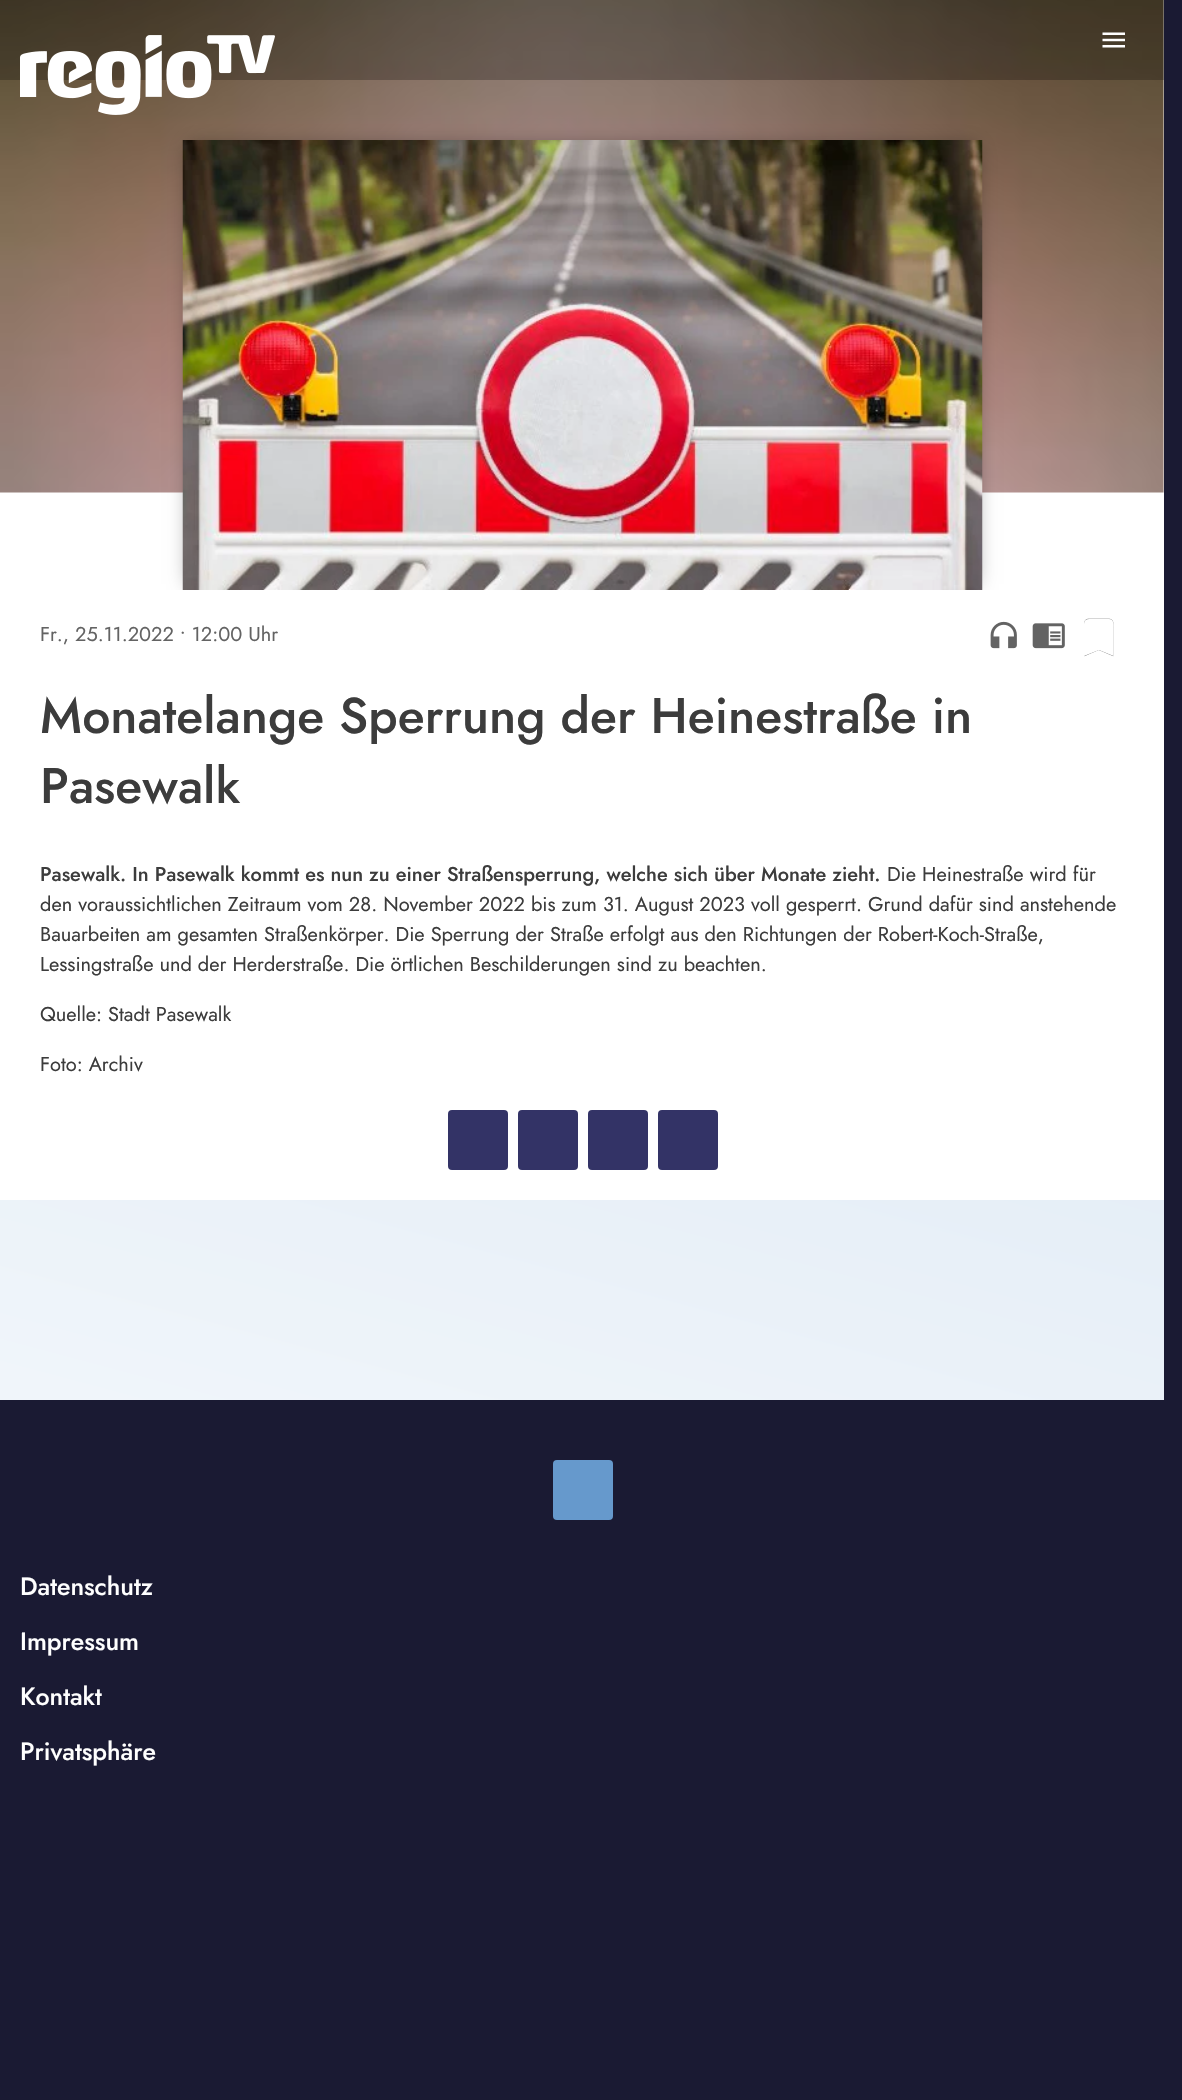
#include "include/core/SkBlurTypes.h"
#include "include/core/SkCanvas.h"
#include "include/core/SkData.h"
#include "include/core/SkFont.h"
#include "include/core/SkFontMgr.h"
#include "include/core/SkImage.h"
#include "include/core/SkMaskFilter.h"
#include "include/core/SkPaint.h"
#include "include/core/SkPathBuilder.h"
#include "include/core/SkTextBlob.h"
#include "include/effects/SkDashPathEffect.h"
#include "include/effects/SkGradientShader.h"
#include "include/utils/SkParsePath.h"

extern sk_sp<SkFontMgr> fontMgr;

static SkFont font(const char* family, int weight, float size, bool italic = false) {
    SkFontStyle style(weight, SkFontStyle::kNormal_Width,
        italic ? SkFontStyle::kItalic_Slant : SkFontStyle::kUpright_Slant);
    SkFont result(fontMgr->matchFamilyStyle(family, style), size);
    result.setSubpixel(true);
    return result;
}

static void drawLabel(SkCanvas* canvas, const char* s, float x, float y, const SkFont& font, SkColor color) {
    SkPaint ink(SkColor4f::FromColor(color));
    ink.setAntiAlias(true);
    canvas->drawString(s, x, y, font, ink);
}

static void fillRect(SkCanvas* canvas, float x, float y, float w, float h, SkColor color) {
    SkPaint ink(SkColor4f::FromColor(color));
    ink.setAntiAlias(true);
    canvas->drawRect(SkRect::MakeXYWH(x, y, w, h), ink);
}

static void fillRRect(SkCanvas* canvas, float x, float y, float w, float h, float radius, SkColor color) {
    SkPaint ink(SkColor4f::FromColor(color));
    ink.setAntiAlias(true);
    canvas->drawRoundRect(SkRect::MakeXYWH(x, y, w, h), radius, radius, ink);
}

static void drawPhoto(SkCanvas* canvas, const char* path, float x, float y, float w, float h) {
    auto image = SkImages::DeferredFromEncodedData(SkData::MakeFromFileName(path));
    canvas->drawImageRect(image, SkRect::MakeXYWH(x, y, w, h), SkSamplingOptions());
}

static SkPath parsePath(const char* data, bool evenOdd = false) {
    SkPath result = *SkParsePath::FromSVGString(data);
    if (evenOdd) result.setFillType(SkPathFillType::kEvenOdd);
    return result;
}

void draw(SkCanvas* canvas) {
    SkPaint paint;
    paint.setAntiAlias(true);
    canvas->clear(0xFF1A1A33);
    fillRect(canvas, 0, 0, 1164, 1200, 0xFFFFFFFF);
    drawPhoto(canvas, "assets/img3.png", 0, 0, 1164, 493);
    fillRect(canvas, 0, 0, 1164, 80, 0x40000000);
    drawPhoto(canvas, "assets/img1.png", 20, 35, 255, 80);
    drawPhoto(canvas, "assets/img2.png", 1102, 32, 23, 16);
    {
        const SkColor colors[] = {0xFFD9E6F3, 0xFFFFFFFF};
        const float stops[] = {0.25f, 1};
        const SkPoint ends[] = {{893, -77}, {289, 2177}};
        paint.setShader(SkGradientShader::MakeLinear(ends, colors, stops, 2, SkTileMode::kClamp));
        paint.setAlpha(255);
    }
    canvas->drawRect(SkRect::MakeXYWH(0, 1200, 1164, 200), paint);
    canvas->save();
    canvas->clipRect(SkRect::MakeXYWH(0, 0, 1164, 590));
    paint.setShader(nullptr);
    paint.setColor(0x66000000);
    paint.setMaskFilter(SkMaskFilter::MakeBlur(kNormal_SkBlurStyle, 9.5f));
    canvas->drawRect(SkRect::MakeXYWH(189, 146, 787, 438), paint);
    paint.setMaskFilter(nullptr);
    canvas->restore();
    drawPhoto(canvas, "assets/img4.png", 182, 140, 801, 450);
    SkFont font1 = font("Jost", 400, 20);
    drawLabel(canvas, "Fr., 25.11.2022 • 12:00 Uhr", 40, 641, font1, 0xFF636363);
    drawPhoto(canvas, "assets/img5.png", 990, 621, 27, 28);
    drawPhoto(canvas, "assets/img6.png", 1032, 623, 33, 26);
    drawPhoto(canvas, "assets/img7.png", 1084, 618, 30, 39);
    paint.setColor(0xFFFFFFFF);
    canvas->drawPath(parsePath("M1109 619C1114.5 619 1113.5 625.5 1113.5 628.5V656L1099 650L1084 656V628.5C1084 620.5 1083.5 619 1092 619Z"), paint);
    SkFont font2 = font("Jost", 500, 50);
    drawLabel(canvas, "Monatelange Sperrung der Heinestraße in", 40, 733, font2, 0xFF3C3C3C);
    drawLabel(canvas, "Pasewalk", 40, 803, font2, 0xFF3C3C3C);
    SkFont font3 = font("Jost", 500, 20);
    drawLabel(canvas, "Pasewalk. In Pasewalk kommt es nun zu einer Straßensperrung, welche sich über Monate zieht.", 40, 881, font3, 0xFF3C3C3C);
    drawLabel(canvas, "Die Heinestraße wird für", 887, 881, font1, 0xFF3C3C3C);
    drawLabel(canvas, "den voraussichtlichen Zeitraum vom 28. November 2022 bis zum 31. August 2023 voll gesperrt. Grund dafür sind anstehende", 40, 911, font1, 0xFF3C3C3C);
    drawLabel(canvas, "Bauarbeiten am gesamten Straßenkörper. Die Sperrung der Straße erfolgt aus den Richtungen der Robert-Koch-Straße,", 40, 941, font1, 0xFF3C3C3C);
    drawLabel(canvas, "Lessingstraße und der Herderstraße. Die örtlichen Beschilderungen sind zu beachten.", 40, 971, font1, 0xFF3C3C3C);
    drawLabel(canvas, "Quelle: Stadt Pasewalk", 40, 1021, font1, 0xFF3C3C3C);
    drawLabel(canvas, "Foto: Archiv", 40, 1071, font1, 0xFF3C3C3C);
    fillRRect(canvas, 448, 1110, 60, 60, 4, 0xFF333366);
    fillRRect(canvas, 518, 1110, 60, 60, 4, 0xFF333366);
    fillRRect(canvas, 588, 1110, 60, 60, 4, 0xFF333366);
    fillRRect(canvas, 658, 1110, 60, 60, 4, 0xFF333366);
    fillRRect(canvas, 553, 1460, 60, 60, 4, 0xFF6699CC);
    SkFont font4 = font("Jost", 500, 25);
    drawLabel(canvas, "Datenschutz", 20, 1595, font4, 0xFFFFFFFF);
    drawLabel(canvas, "Impressum", 20, 1650, font4, 0xFFFFFFFF);
    drawLabel(canvas, "Kontakt", 20, 1705, font4, 0xFFFFFFFF);
    drawLabel(canvas, "Privatsphäre", 20, 1760, font4, 0xFFFFFFFF);
}
